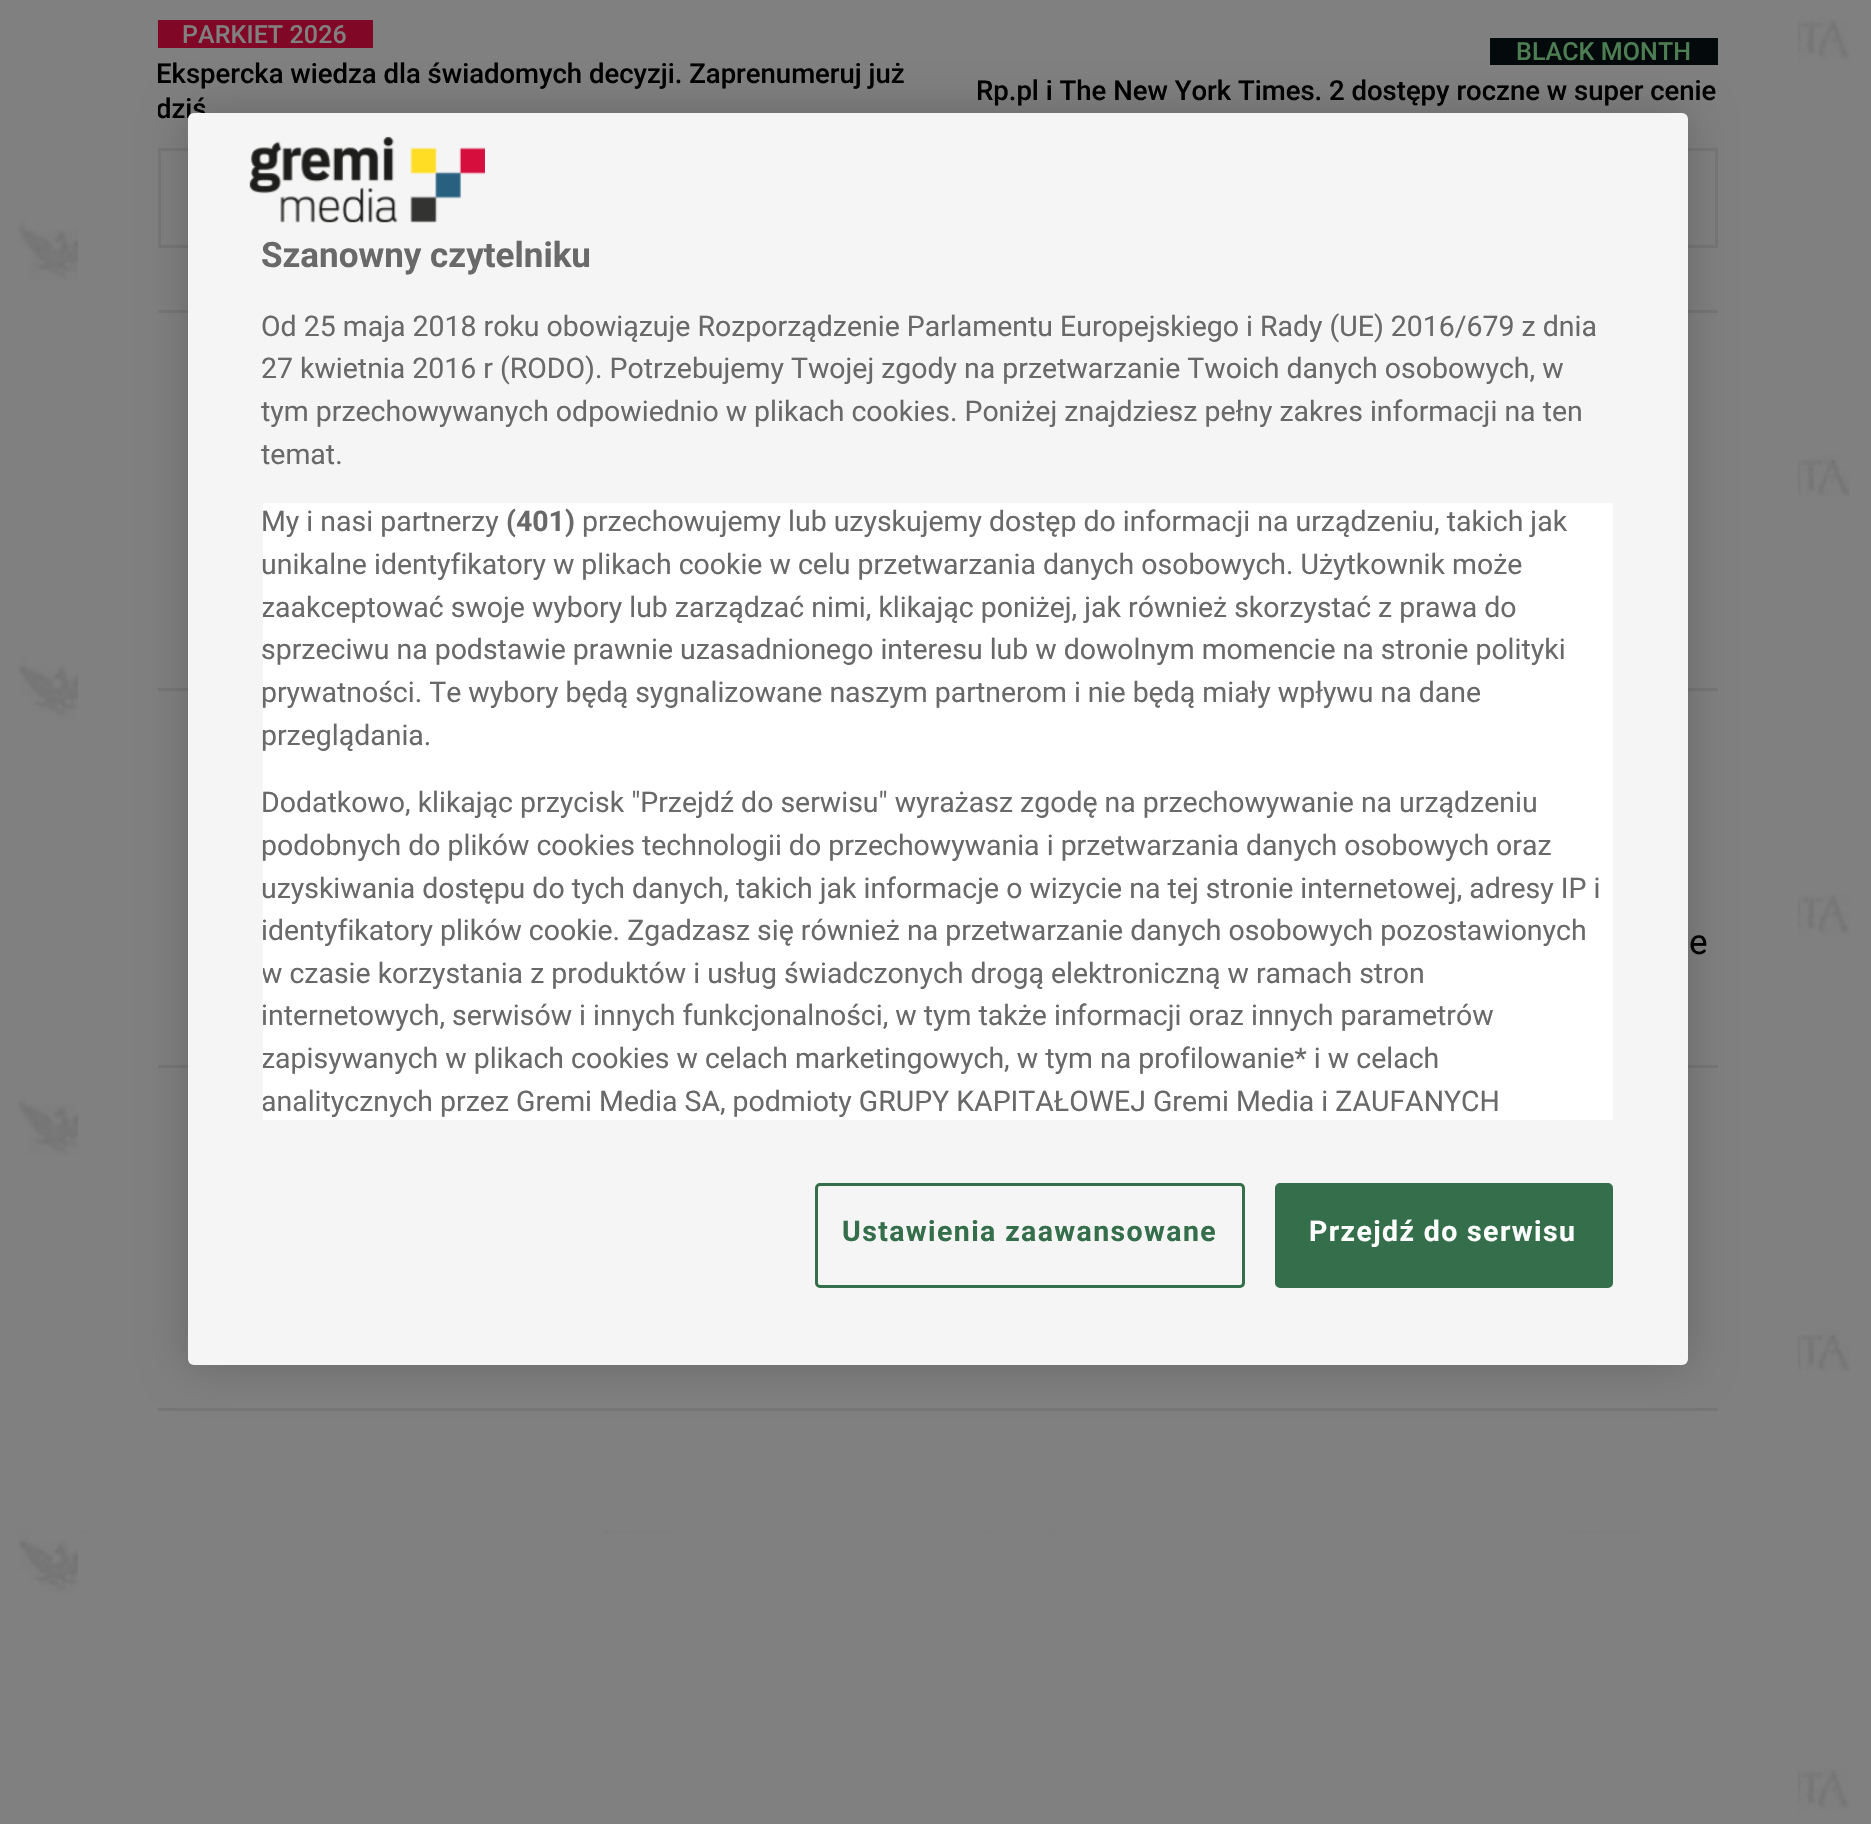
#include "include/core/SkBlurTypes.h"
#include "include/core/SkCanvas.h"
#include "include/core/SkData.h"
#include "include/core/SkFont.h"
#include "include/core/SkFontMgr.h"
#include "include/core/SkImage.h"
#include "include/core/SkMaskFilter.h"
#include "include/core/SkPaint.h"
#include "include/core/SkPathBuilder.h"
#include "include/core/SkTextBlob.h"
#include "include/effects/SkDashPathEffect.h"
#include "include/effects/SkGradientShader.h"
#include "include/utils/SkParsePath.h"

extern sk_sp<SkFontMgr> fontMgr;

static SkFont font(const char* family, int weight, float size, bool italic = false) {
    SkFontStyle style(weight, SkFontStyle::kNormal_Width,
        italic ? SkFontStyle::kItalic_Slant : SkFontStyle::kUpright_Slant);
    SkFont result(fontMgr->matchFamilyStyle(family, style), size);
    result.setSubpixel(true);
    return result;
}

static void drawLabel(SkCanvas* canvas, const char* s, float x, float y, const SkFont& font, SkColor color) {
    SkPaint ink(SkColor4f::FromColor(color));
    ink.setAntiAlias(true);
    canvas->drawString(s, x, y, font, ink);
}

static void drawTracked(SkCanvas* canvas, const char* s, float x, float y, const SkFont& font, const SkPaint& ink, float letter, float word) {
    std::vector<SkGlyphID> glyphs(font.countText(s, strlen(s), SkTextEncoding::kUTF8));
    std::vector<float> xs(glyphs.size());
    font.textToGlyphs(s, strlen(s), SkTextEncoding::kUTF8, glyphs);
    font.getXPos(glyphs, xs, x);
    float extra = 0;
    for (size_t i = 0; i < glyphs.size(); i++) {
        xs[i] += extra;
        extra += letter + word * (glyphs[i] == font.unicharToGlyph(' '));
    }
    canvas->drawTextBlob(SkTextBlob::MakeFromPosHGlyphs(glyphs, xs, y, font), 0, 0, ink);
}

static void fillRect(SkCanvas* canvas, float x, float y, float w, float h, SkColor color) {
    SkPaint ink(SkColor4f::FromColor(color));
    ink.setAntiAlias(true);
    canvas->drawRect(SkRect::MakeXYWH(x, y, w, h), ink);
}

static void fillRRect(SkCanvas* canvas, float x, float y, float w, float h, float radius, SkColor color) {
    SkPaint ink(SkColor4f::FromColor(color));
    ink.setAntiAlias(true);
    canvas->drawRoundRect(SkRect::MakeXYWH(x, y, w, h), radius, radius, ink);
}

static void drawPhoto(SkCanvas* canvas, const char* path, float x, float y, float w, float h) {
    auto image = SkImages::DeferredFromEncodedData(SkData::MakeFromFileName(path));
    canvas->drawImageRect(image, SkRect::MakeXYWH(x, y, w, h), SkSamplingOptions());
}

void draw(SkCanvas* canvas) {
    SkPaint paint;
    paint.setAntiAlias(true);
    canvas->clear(0xFF808080);
    drawPhoto(canvas, "assets/img1.png", 18, 3, 1832, 1816);
    fillRect(canvas, 78, 3, 1720, 1377, 0xFF808080);
    fillRect(canvas, 158, 20, 215, 28, 0xFF800725);
    SkFont font1 = font("Roboto", 500, 25);
    paint.setColor(0xFF808080);
    drawTracked(canvas, "PARKIET 2026", 182, 43, font1, paint, 0.1f, 0);
    SkFont font2 = font("Roboto", 500, 27.5f);
    drawLabel(canvas, "Ekspercka wiedza dla świadomych decyzji. Zaprenumeruj już", 156, 83, font2, 0xFF000000);
    canvas->save();
    canvas->clipRect(SkRect::MakeXYWH(158, 58, 780, 70));
    drawLabel(canvas, "dziś", 156, 118, font2, 0xFF000000);
    canvas->restore();
    fillRect(canvas, 1490, 38, 228, 27, 0xFF040A0B);
    paint.setColor(0xFF4D7D52);
    drawTracked(canvas, "BLACK MONTH", 1516, 60, font1, paint, 0.1f, 0);
    drawLabel(canvas, "Rp.pl i The New York Times. 2 dostępy roczne w super cenie", 976, 100, font2, 0xFF000000);
    fillRect(canvas, 158, 148, 1560, 3, 0xFF767676);
    fillRect(canvas, 158, 245, 1560, 3, 0xFF767676);
    fillRect(canvas, 1715, 150, 3, 95, 0xFF767676);
    fillRect(canvas, 158, 150, 3, 95, 0xFF767676);
    fillRect(canvas, 158, 310, 1560, 3, 0xFF767676);
    fillRect(canvas, 158, 688, 1560, 3, 0xFF767676);
    SkFont font3 = font("Roboto", 400, 35);
    drawLabel(canvas, "e", 1689, 954, font3, 0xFF000000);
    fillRect(canvas, 158, 1065, 1560, 3, 0xFF767676);
    fillRect(canvas, 158, 1408, 1560, 3, 0xFF767676);
    fillRect(canvas, 78, 1534, 1720, 285, 0xFF808080);
    paint.setColor(0x33000000);
    paint.setMaskFilter(SkMaskFilter::MakeBlur(kNormal_SkBlurStyle, 22.5f));
    canvas->drawRoundRect(SkRect::MakeXYWH(188, 113, 1500, 1252), 6, 6, paint);
    paint.setMaskFilter(nullptr);
    fillRRect(canvas, 188, 113, 1500, 1252, 6, 0xFFF5F5F5);
    drawPhoto(canvas, "assets/img2.png", 249, 136, 236, 87);
    SkFont font4 = font("Roboto", 700, 35);
    drawLabel(canvas, "Szanowny czytelniku", 261, 267, font4, 0xFF696969);
    SkFont font5 = font("Roboto", 400, 28.45f);
    drawLabel(canvas, "Od 25 maja 2018 roku obowiązuje Rozporządzenie Parlamentu Europejskiego i Rady (UE) 2016/679 z dnia", 261, 336, font5, 0xFF696969);
    drawLabel(canvas, "27 kwietnia 2016 r (RODO). Potrzebujemy Twojej zgody na przetwarzanie Twoich danych osobowych, w", 261, 378, font5, 0xFF696969);
    drawLabel(canvas, "tym przechowywanych odpowiednio w plikach cookies. Poniżej znajdziesz pełny zakres informacji na ten", 261, 421, font5, 0xFF696969);
    drawLabel(canvas, "temat.", 261, 464, font5, 0xFF696969);
    fillRect(canvas, 263, 503, 1350, 617, 0xFFFFFFFF);
    drawLabel(canvas, "My i nasi partnerzy", 261, 531, font5, 0xFF696969);
    SkFont font6 = font("Roboto", 700, 28.45f);
    drawLabel(canvas, "(401)", 506, 531, font6, 0xFF696969);
    drawLabel(canvas, "przechowujemy lub uzyskujemy dostęp do informacji na urządzeniu, takich jak", 582, 531, font5, 0xFF696969);
    drawLabel(canvas, "unikalne identyfikatory w plikach cookie w celu przetwarzania danych osobowych. Użytkownik może", 261, 574, font5, 0xFF696969);
    canvas->save();
    canvas->clipRect(SkRect::MakeXYWH(263, 503, 1350, 617));
    drawLabel(canvas, "zaakceptować swoje wybory lub zarządzać nimi, klikając poniżej, jak również skorzystać z prawa do", 261, 617, font5, 0xFF696969);
    canvas->restore();
    drawLabel(canvas, "sprzeciwu na podstawie prawnie uzasadnionego interesu lub w dowolnym momencie na stronie polityki", 261, 659, font5, 0xFF696969);
    drawLabel(canvas, "prywatności. Te wybory będą sygnalizowane naszym partnerom i nie będą miały wpływu na dane", 261, 702, font5, 0xFF696969);
    drawLabel(canvas, "przeglądania.", 261, 745, font5, 0xFF696969);
    drawLabel(canvas, "Dodatkowo, klikając przycisk \"Przejdź do serwisu\" wyrażasz zgodę na przechowywanie na urządzeniu", 261, 812, font5, 0xFF696969);
    drawLabel(canvas, "podobnych do plików cookies technologii do przechowywania i przetwarzania danych osobowych oraz", 261, 855, font5, 0xFF696969);
    drawLabel(canvas, "uzyskiwania dostępu do tych danych, takich jak informacje o wizycie na tej stronie internetowej, adresy IP i", 261, 898, font5, 0xFF696969);
    drawLabel(canvas, "identyfikatory plików cookie. Zgadzasz się również na przetwarzanie danych osobowych pozostawionych", 261, 940, font5, 0xFF696969);
    canvas->save();
    canvas->clipRect(SkRect::MakeXYWH(263, 503, 1350, 617));
    drawLabel(canvas, "w czasie korzystania z produktów i usług świadczonych drogą elektroniczną w ramach stron", 261, 983, font5, 0xFF696969);
    canvas->restore();
    drawLabel(canvas, "internetowych, serwisów i innych funkcjonalności, w tym także informacji oraz innych parametrów", 261, 1025, font5, 0xFF696969);
    canvas->save();
    canvas->clipRect(SkRect::MakeXYWH(263, 503, 1350, 617));
    drawLabel(canvas, "zapisywanych w plikach cookies w celach marketingowych, w tym na profilowanie* i w celach", 261, 1068, font5, 0xFF696969);
    drawLabel(canvas, "analitycznych przez Gremi Media SA, podmioty GRUPY KAPITAŁOWEJ Gremi Media i ZAUFANYCH", 261, 1111, font5, 0xFF696969);
    canvas->restore();
    paint.setStroke(true);
    paint.setStrokeWidth(3);
    paint.setColor(0xFF346E4A);
    canvas->drawRoundRect(SkRect::MakeXYWH(816.5f, 1184.5f, 427, 102), 3.5f, 3.5f, paint);
    paint.setStroke(false);
    drawTracked(canvas, "Ustawienia zaawansowane", 842, 1241, font6, paint, 1.4f, 0);
    canvas->drawRoundRect(SkRect::MakeXYWH(1276.5f, 1184.5f, 335, 102), 3.5f, 3.5f, paint);
    paint.setStroke(true);
    canvas->drawRoundRect(SkRect::MakeXYWH(1276.5f, 1184.5f, 335, 102), 3.5f, 3.5f, paint);
    paint.setStroke(false);
    paint.setColor(0xFFFFFFFF);
    drawTracked(canvas, "Przejdź do serwisu", 1309, 1241, font6, paint, 1.4f, 0);
}
